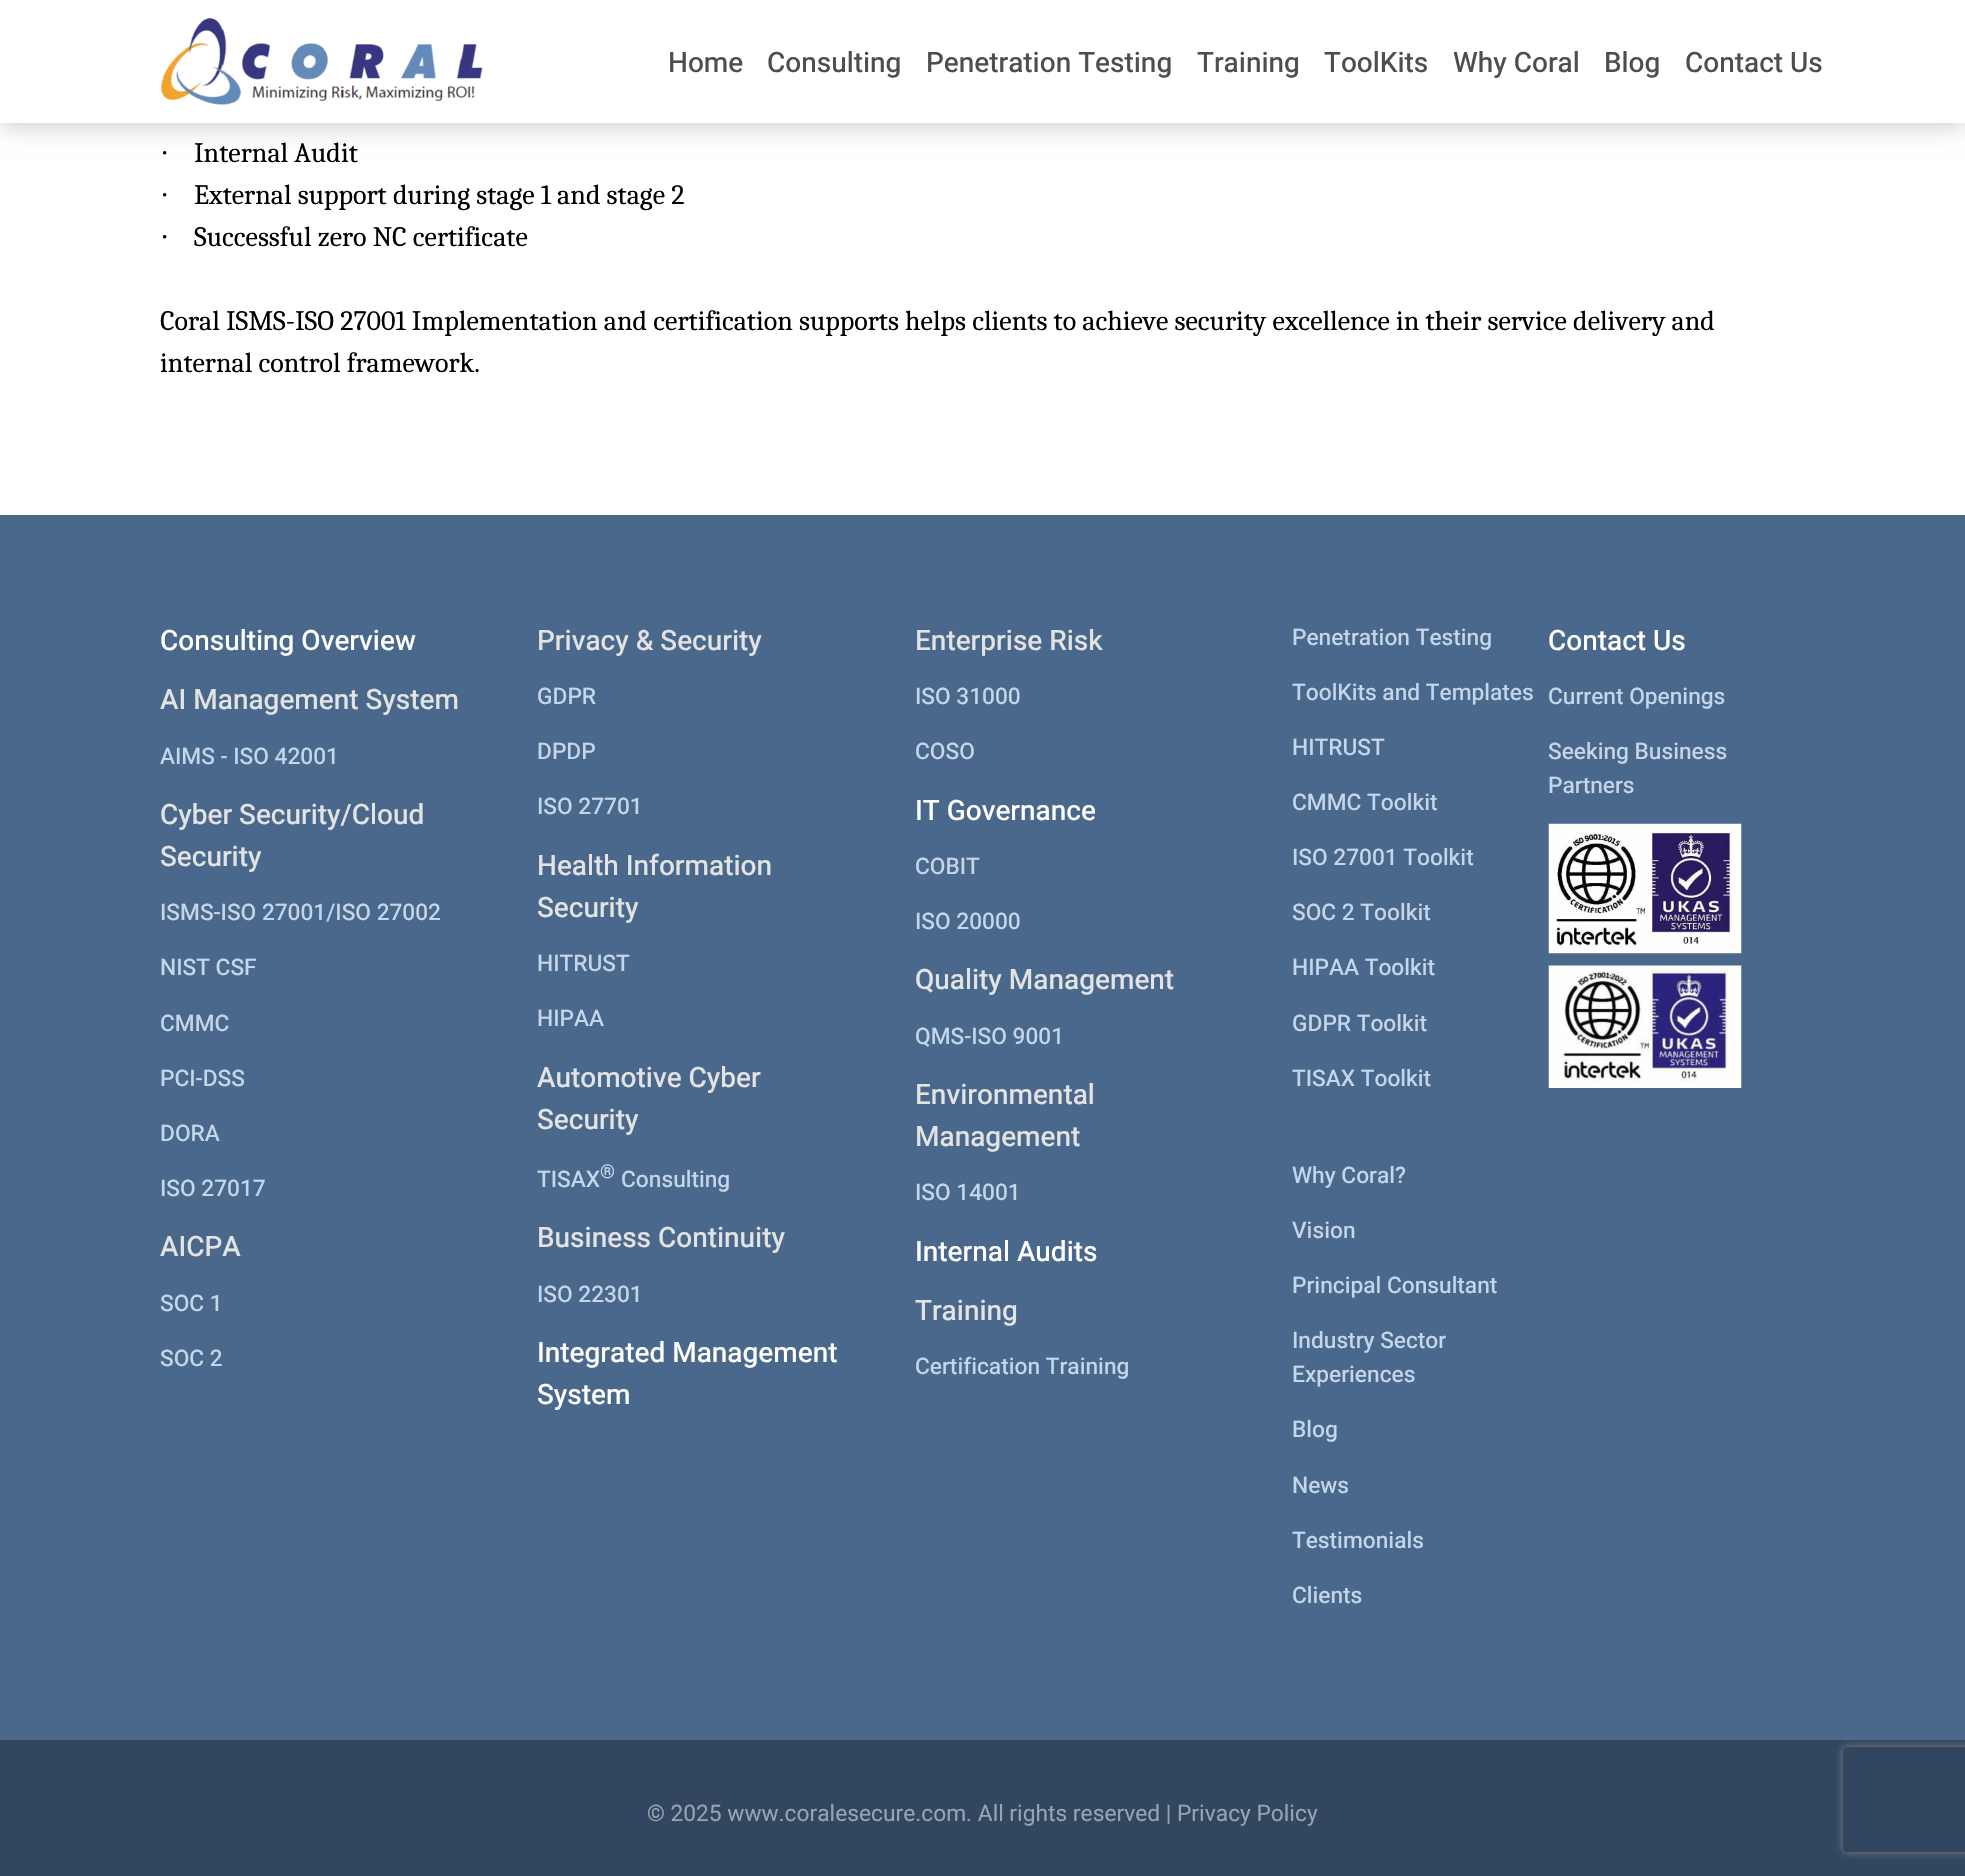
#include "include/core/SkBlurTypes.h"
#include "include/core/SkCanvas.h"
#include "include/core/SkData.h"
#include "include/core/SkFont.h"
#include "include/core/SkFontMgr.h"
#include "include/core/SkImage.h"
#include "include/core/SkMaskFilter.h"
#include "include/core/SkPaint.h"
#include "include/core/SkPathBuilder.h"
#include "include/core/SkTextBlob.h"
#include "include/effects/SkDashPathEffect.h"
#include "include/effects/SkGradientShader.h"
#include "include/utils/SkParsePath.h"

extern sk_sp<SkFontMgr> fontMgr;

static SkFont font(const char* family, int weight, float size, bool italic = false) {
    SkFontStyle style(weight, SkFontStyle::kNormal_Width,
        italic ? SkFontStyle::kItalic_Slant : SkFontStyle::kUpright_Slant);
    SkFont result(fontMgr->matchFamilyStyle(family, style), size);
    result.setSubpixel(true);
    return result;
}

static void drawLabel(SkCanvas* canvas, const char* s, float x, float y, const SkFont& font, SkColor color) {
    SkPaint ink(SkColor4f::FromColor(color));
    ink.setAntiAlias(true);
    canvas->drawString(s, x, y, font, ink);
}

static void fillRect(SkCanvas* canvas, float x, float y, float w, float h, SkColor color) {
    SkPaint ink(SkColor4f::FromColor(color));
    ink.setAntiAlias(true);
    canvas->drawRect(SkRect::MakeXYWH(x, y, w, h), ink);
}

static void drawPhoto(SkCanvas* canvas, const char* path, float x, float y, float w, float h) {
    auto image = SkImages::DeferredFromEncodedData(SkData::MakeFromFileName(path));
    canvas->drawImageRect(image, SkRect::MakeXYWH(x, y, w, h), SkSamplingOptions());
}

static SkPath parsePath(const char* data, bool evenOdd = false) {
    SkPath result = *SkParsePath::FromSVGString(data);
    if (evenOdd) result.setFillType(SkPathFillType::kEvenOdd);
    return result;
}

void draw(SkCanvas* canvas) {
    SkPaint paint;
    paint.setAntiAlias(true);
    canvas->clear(0xFFFFFFFF);
    paint.setColor(0x40000000);
    paint.setMaskFilter(SkMaskFilter::MakeBlur(kNormal_SkBlurStyle, 13));
    canvas->drawRect(SkRect::MakeXYWH(0, 0, 1965, 123), paint);
    paint.setMaskFilter(nullptr);
    fillRect(canvas, 0, 0, 1965, 123, 0xFFFFFFFF);
    drawPhoto(canvas, "assets/img1.png", 160, 18, 323, 87);
    SkFont font1 = font("Heebo", 500, 28);
    drawLabel(canvas, "Home", 668, 72, font1, 0xFF4E4E4E);
    drawLabel(canvas, "Consulting", 767, 72, font1, 0xFF4E4E4E);
    drawLabel(canvas, "Penetration Testing", 926, 72, font1, 0xFF4E4E4E);
    drawLabel(canvas, "Training", 1197, 72, font1, 0xFF4E4E4E);
    drawLabel(canvas, "ToolKits", 1324, 72, font1, 0xFF4E4E4E);
    drawLabel(canvas, "Why Coral", 1453, 72, font1, 0xFF4E4E4E);
    drawLabel(canvas, "Blog", 1604, 72, font1, 0xFF4E4E4E);
    drawLabel(canvas, "Contact Us", 1685, 72, font1, 0xFF4E4E4E);
    SkFont font2 = font("Liberation Serif", 400, 28);
    drawLabel(canvas, "·", 160, 162, font2, 0xFF000000);
    SkFont font3 = font("Caladea", 400, 28);
    drawLabel(canvas, "Internal Audit", 194, 162, font3, 0xFF000000);
    drawLabel(canvas, "·", 160, 204, font2, 0xFF000000);
    drawLabel(canvas, "External support during stage 1 and stage 2", 194, 204, font3, 0xFF000000);
    drawLabel(canvas, "·", 160, 246, font2, 0xFF000000);
    drawLabel(canvas, "Successful zero NC certificate", 194, 246, font3, 0xFF000000);
    drawLabel(canvas, "Coral ISMS-ISO 27001 Implementation and certification supports helps clients to achieve security excellence in their service delivery and", 160, 330, font3, 0xFF000000);
    drawLabel(canvas, "internal control framework.", 160, 372, font3, 0xFF000000);
    fillRect(canvas, 0, 515, 1965, 1225, 0xFF4A688B);
    drawLabel(canvas, "Consulting Overview", 160, 650, font1, 0xFFFFFFFF);
    drawLabel(canvas, "AI Management System", 160, 709, font1, 0xFFE3E3E3);
    SkFont font4 = font("Heebo", 500, 22.75f);
    drawLabel(canvas, "AIMS - ISO 42001", 160, 764, font4, 0xFFC4D6EC);
    drawLabel(canvas, "Cyber Security/Cloud", 160, 824, font1, 0xFFE3E3E3);
    drawLabel(canvas, "Security", 160, 866, font1, 0xFFE3E3E3);
    drawLabel(canvas, "ISMS-ISO 27001/ISO 27002", 160, 920, font4, 0xFFC4D6EC);
    drawLabel(canvas, "NIST CSF", 160, 975, font4, 0xFFC4D6EC);
    drawLabel(canvas, "CMMC", 160, 1031, font4, 0xFFC4D6EC);
    drawLabel(canvas, "PCI-DSS", 160, 1086, font4, 0xFFC4D6EC);
    drawLabel(canvas, "DORA", 160, 1141, font4, 0xFFC4D6EC);
    drawLabel(canvas, "ISO 27017", 160, 1196, font4, 0xFFC4D6EC);
    drawLabel(canvas, "AICPA", 160, 1256, font1, 0xFFE3E3E3);
    drawLabel(canvas, "SOC 1", 160, 1311, font4, 0xFFC4D6EC);
    drawLabel(canvas, "SOC 2", 160, 1366, font4, 0xFFC4D6EC);
    drawLabel(canvas, "Privacy & Security", 537, 650, font1, 0xFFE3E3E3);
    drawLabel(canvas, "GDPR", 537, 704, font4, 0xFFC4D6EC);
    drawLabel(canvas, "DPDP", 537, 759, font4, 0xFFC4D6EC);
    drawLabel(canvas, "ISO 27701", 537, 814, font4, 0xFFC4D6EC);
    drawLabel(canvas, "Health Information", 537, 875, font1, 0xFFE3E3E3);
    drawLabel(canvas, "Security", 537, 917, font1, 0xFFE3E3E3);
    drawLabel(canvas, "HITRUST", 537, 971, font4, 0xFFC4D6EC);
    drawLabel(canvas, "HIPAA", 537, 1026, font4, 0xFFC4D6EC);
    drawLabel(canvas, "Automotive Cyber", 537, 1087, font1, 0xFFE3E3E3);
    drawLabel(canvas, "Security", 537, 1129, font1, 0xFFE3E3E3);
    drawLabel(canvas, "TISAX", 537, 1187, font4, 0xFFC4D6EC);
    SkFont font5 = font("Heebo", 500, 19);
    drawLabel(canvas, "®", 600, 1178, font5, 0xFFC4D6EC);
    drawLabel(canvas, "Consulting", 621, 1187, font4, 0xFFC4D6EC);
    drawLabel(canvas, "Business Continuity", 537, 1247, font1, 0xFFE3E3E3);
    drawLabel(canvas, "ISO 22301", 537, 1302, font4, 0xFFC4D6EC);
    drawLabel(canvas, "Integrated Management", 537, 1362, font1, 0xFFFFFFFF);
    drawLabel(canvas, "System", 537, 1404, font1, 0xFFFFFFFF);
    drawLabel(canvas, "Enterprise Risk", 915, 650, font1, 0xFFE3E3E3);
    drawLabel(canvas, "ISO 31000", 915, 704, font4, 0xFFC4D6EC);
    drawLabel(canvas, "COSO", 915, 759, font4, 0xFFC4D6EC);
    drawLabel(canvas, "IT Governance", 915, 820, font1, 0xFFFFFFFF);
    drawLabel(canvas, "COBIT", 915, 874, font4, 0xFFC4D6EC);
    drawLabel(canvas, "ISO 20000", 915, 929, font4, 0xFFC4D6EC);
    drawLabel(canvas, "Quality Management", 915, 989, font1, 0xFFE3E3E3);
    drawLabel(canvas, "QMS-ISO 9001", 915, 1044, font4, 0xFFC4D6EC);
    drawLabel(canvas, "Environmental", 915, 1104, font1, 0xFFE3E3E3);
    drawLabel(canvas, "Management", 915, 1146, font1, 0xFFE3E3E3);
    drawLabel(canvas, "ISO 14001", 915, 1200, font4, 0xFFC4D6EC);
    drawLabel(canvas, "Internal Audits", 915, 1261, font1, 0xFFFFFFFF);
    drawLabel(canvas, "Training", 915, 1320, font1, 0xFFE3E3E3);
    drawLabel(canvas, "Certification Training", 915, 1374, font4, 0xFFC4D6EC);
    drawLabel(canvas, "Penetration Testing", 1292, 645, font4, 0xFFC4D6EC);
    drawLabel(canvas, "ToolKits and Templates", 1292, 700, font4, 0xFFC4D6EC);
    drawLabel(canvas, "HITRUST", 1292, 755, font4, 0xFFC4D6EC);
    drawLabel(canvas, "CMMC Toolkit", 1292, 810, font4, 0xFFC4D6EC);
    drawLabel(canvas, "ISO 27001 Toolkit", 1292, 865, font4, 0xFFC4D6EC);
    drawLabel(canvas, "SOC 2 Toolkit", 1292, 920, font4, 0xFFC4D6EC);
    drawLabel(canvas, "HIPAA Toolkit", 1292, 975, font4, 0xFFC4D6EC);
    drawLabel(canvas, "GDPR Toolkit", 1292, 1031, font4, 0xFFC4D6EC);
    drawLabel(canvas, "TISAX Toolkit", 1292, 1086, font4, 0xFFC4D6EC);
    drawLabel(canvas, "Why Coral?", 1292, 1183, font4, 0xFFC4D6EC);
    drawLabel(canvas, "Vision", 1292, 1238, font4, 0xFFC4D6EC);
    drawLabel(canvas, "Principal Consultant", 1292, 1293, font4, 0xFFC4D6EC);
    drawLabel(canvas, "Industry Sector", 1292, 1348, font4, 0xFFC4D6EC);
    drawLabel(canvas, "Experiences", 1292, 1382, font4, 0xFFC4D6EC);
    drawLabel(canvas, "Blog", 1292, 1437, font4, 0xFFC4D6EC);
    drawLabel(canvas, "News", 1292, 1493, font4, 0xFFC4D6EC);
    drawLabel(canvas, "Testimonials", 1292, 1548, font4, 0xFFC4D6EC);
    drawLabel(canvas, "Clients", 1292, 1603, font4, 0xFFC4D6EC);
    drawLabel(canvas, "Contact Us", 1548, 650, font1, 0xFFFFFFFF);
    drawLabel(canvas, "Current Openings", 1548, 704, font4, 0xFFC4D6EC);
    drawLabel(canvas, "Seeking Business", 1548, 759, font4, 0xFFC4D6EC);
    drawLabel(canvas, "Partners", 1548, 793, font4, 0xFFC4D6EC);
    drawPhoto(canvas, "assets/img2.png", 1548, 823, 194, 131);
    drawPhoto(canvas, "assets/img3.png", 1548, 965, 194, 123);
    fillRect(canvas, 0, 1740, 1965, 136, 0xFF31465F);
    SkFont font6 = font("Heebo", 400, 22.75f);
    drawLabel(canvas, "© 2025 www.coralesecure.com. All rights reserved | Privacy Policy", 647, 1821, font6, 0xFF98A3AF);
    canvas->save();
    canvas->clipPath(parsePath("M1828 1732H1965V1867H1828ZM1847 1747H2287C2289 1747 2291 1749 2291 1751V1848C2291 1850 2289 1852 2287 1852H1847C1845 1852 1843 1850 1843 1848V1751C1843 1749 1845 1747 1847 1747Z", true), true);
    paint.setColor(0xFF808080);
    paint.setMaskFilter(SkMaskFilter::MakeBlur(kNormal_SkBlurStyle, 4.5f));
    canvas->drawRoundRect(SkRect::MakeXYWH(1843, 1747, 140, 105), 4, 4, paint);
    paint.setMaskFilter(nullptr);
    canvas->restore();
}
